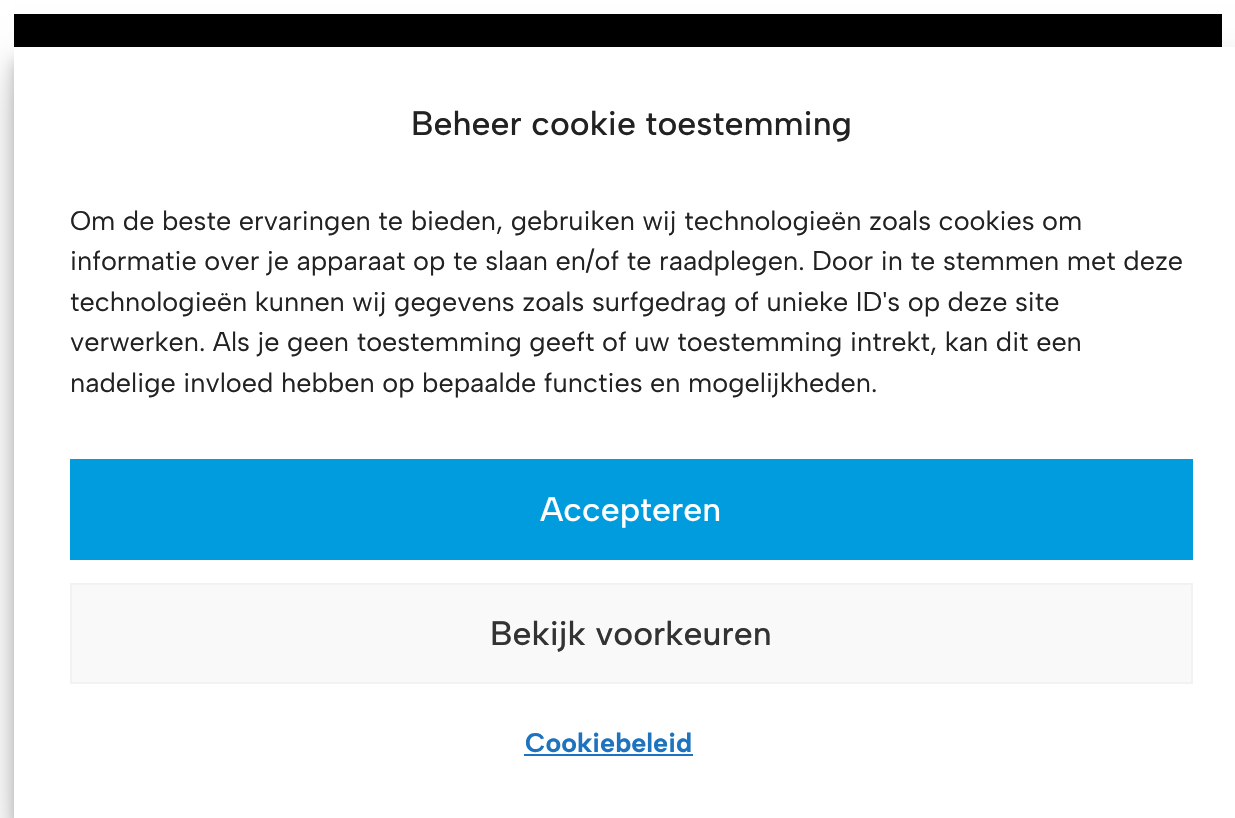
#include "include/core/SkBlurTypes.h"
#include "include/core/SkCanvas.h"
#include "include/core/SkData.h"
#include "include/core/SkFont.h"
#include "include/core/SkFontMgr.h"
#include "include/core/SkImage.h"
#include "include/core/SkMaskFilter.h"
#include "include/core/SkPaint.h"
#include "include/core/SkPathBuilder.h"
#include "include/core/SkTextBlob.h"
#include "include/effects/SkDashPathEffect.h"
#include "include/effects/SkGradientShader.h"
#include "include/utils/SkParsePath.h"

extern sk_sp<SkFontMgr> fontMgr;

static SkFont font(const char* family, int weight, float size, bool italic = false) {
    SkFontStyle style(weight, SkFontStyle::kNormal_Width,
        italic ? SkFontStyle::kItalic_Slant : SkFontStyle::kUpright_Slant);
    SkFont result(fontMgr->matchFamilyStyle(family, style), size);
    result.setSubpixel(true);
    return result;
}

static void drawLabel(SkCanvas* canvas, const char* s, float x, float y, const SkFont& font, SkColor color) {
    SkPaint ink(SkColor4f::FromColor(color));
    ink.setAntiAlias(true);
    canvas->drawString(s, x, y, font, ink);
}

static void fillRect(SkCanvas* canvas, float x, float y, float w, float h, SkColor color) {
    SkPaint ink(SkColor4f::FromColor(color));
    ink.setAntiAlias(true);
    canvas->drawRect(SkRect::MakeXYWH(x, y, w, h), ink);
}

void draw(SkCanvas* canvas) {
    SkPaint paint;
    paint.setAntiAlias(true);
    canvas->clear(0xFFFFFFFF);
    fillRect(canvas, 14, 14, 1208, 33, 0xFF000000);
    paint.setColor(0x3B000000);
    paint.setMaskFilter(SkMaskFilter::MakeBlur(kNormal_SkBlurStyle, 7));
    canvas->drawRect(SkRect::MakeXYWH(14, 61, 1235, 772), paint);
    paint.setMaskFilter(nullptr);
    paint.setColor(0x30000000);
    paint.setMaskFilter(SkMaskFilter::MakeBlur(kNormal_SkBlurStyle, 22.5f));
    canvas->drawRect(SkRect::MakeXYWH(14, 70, 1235, 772), paint);
    paint.setMaskFilter(nullptr);
    fillRect(canvas, 14, 47, 1221, 771, 0xFFFFFFFF);
    SkFont font1 = font("Albert Sans", 500, 33.75f);
    drawLabel(canvas, "Beheer cookie toestemming", 411, 135, font1, 0xFF222222);
    SkFont font2 = font("Albert Sans", 400, 27);
    drawLabel(canvas, "Om de beste ervaringen te bieden, gebruiken wij technologieën zoals cookies om", 70, 230, font2, 0xFF222222);
    drawLabel(canvas, "informatie over je apparaat op te slaan en/of te raadplegen. Door in te stemmen met deze", 70, 270, font2, 0xFF222222);
    drawLabel(canvas, "technologieën kunnen wij gegevens zoals surfgedrag of unieke ID's op deze site", 70, 311, font2, 0xFF222222);
    drawLabel(canvas, "verwerken. Als je geen toestemming geeft of uw toestemming intrekt, kan dit een", 70, 351, font2, 0xFF222222);
    drawLabel(canvas, "nadelige invloed hebben op bepaalde functies en mogelijkheden.", 70, 392, font2, 0xFF222222);
    fillRect(canvas, 70, 459, 1123, 101, 0xFF009CDE);
    drawLabel(canvas, "Accepteren", 540, 521, font1, 0xFFFFFFFF);
    paint.setColor(0xFFF9F9F9);
    canvas->drawRect(SkRect::MakeXYWH(71, 584, 1121, 99), paint);
    paint.setStroke(true);
    paint.setStrokeWidth(2);
    paint.setColor(0xFFF2F2F2);
    canvas->drawRect(SkRect::MakeXYWH(71, 584, 1121, 99), paint);
    drawLabel(canvas, "Bekijk voorkeuren", 490, 645, font1, 0xFF333333);
    SkFont font3 = font("Albert Sans", 700, 27);
    drawLabel(canvas, "Cookiebeleid", 525, 752, font3, 0xFF1E73BE);
    fillRect(canvas, 524, 754, 169, 2, 0xFF1E73BE);
}
